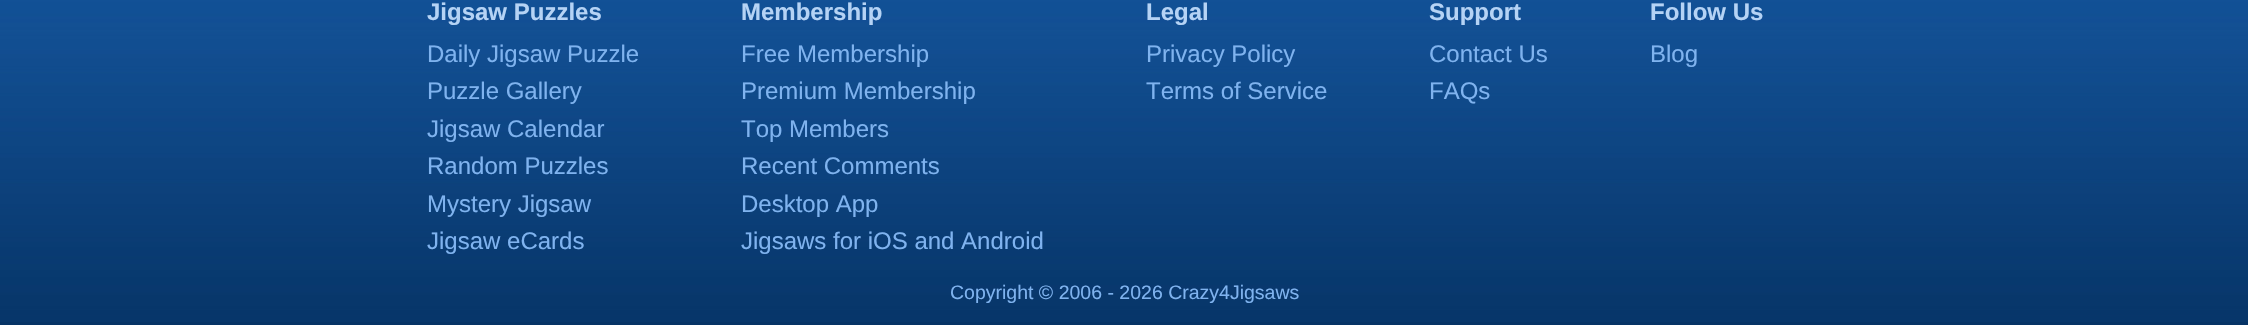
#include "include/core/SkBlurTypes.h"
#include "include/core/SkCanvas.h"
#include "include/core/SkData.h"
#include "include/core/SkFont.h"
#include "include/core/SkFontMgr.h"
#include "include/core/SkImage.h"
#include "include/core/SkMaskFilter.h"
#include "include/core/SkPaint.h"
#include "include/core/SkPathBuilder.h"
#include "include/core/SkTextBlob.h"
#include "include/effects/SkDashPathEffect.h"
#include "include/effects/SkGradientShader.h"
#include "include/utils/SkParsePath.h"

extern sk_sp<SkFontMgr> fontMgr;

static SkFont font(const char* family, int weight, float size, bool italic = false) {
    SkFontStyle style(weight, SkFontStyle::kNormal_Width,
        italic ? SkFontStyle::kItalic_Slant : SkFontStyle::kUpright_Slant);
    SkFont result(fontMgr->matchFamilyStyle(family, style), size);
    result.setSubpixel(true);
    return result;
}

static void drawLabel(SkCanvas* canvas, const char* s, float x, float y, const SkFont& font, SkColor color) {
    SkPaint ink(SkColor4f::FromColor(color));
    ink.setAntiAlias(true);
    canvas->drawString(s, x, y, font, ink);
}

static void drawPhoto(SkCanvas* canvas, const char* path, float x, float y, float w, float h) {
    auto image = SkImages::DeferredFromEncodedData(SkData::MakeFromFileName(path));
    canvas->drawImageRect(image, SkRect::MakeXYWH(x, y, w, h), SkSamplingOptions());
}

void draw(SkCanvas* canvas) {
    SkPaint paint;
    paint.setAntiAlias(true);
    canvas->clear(0xFF063365);
    drawPhoto(canvas, "assets/img1.png", 0, 0, 2248, 322);
    SkFont font1 = font("Liberation Sans", 700, 24);
    drawLabel(canvas, "Jigsaw Puzzles", 427, 20, font1, 0xFFB5D3F5);
    SkFont font2 = font("Liberation Sans", 400, 24);
    drawLabel(canvas, "Daily Jigsaw Puzzle", 427, 62, font2, 0xFF7FB3EF);
    drawLabel(canvas, "Puzzle Gallery", 427, 99, font2, 0xFF7FB3EF);
    drawLabel(canvas, "Jigsaw Calendar", 427, 137, font2, 0xFF7FB3EF);
    drawLabel(canvas, "Random Puzzles", 427, 174, font2, 0xFF7FB3EF);
    drawLabel(canvas, "Mystery Jigsaw", 427, 212, font2, 0xFF7FB3EF);
    drawLabel(canvas, "Jigsaw eCards", 427, 249, font2, 0xFF7FB3EF);
    drawLabel(canvas, "Membership", 741, 20, font1, 0xFFB5D3F5);
    drawLabel(canvas, "Free Membership", 741, 62, font2, 0xFF7FB3EF);
    drawLabel(canvas, "Premium Membership", 741, 99, font2, 0xFF7FB3EF);
    drawLabel(canvas, "Top Members", 741, 137, font2, 0xFF7FB3EF);
    drawLabel(canvas, "Recent Comments", 741, 174, font2, 0xFF7FB3EF);
    drawLabel(canvas, "Desktop App", 741, 212, font2, 0xFF7FB3EF);
    drawLabel(canvas, "Jigsaws for iOS and Android", 741, 249, font2, 0xFF7FB3EF);
    drawLabel(canvas, "Legal", 1146, 20, font1, 0xFFB5D3F5);
    drawLabel(canvas, "Privacy Policy", 1146, 62, font2, 0xFF7FB3EF);
    drawLabel(canvas, "Terms of Service", 1146, 99, font2, 0xFF7FB3EF);
    drawLabel(canvas, "Support", 1429, 20, font1, 0xFFB5D3F5);
    drawLabel(canvas, "Contact Us", 1429, 62, font2, 0xFF7FB3EF);
    drawLabel(canvas, "FAQs", 1429, 99, font2, 0xFF7FB3EF);
    drawLabel(canvas, "Follow Us", 1650, 20, font1, 0xFFB5D3F5);
    drawLabel(canvas, "Blog", 1650, 62, font2, 0xFF7FB3EF);
    SkFont font3 = font("Liberation Sans", 400, 19.5f);
    drawLabel(canvas, "Copyright © 2006 - 2026 Crazy4Jigsaws", 950, 299, font3, 0xFF7FB3EF);
}
